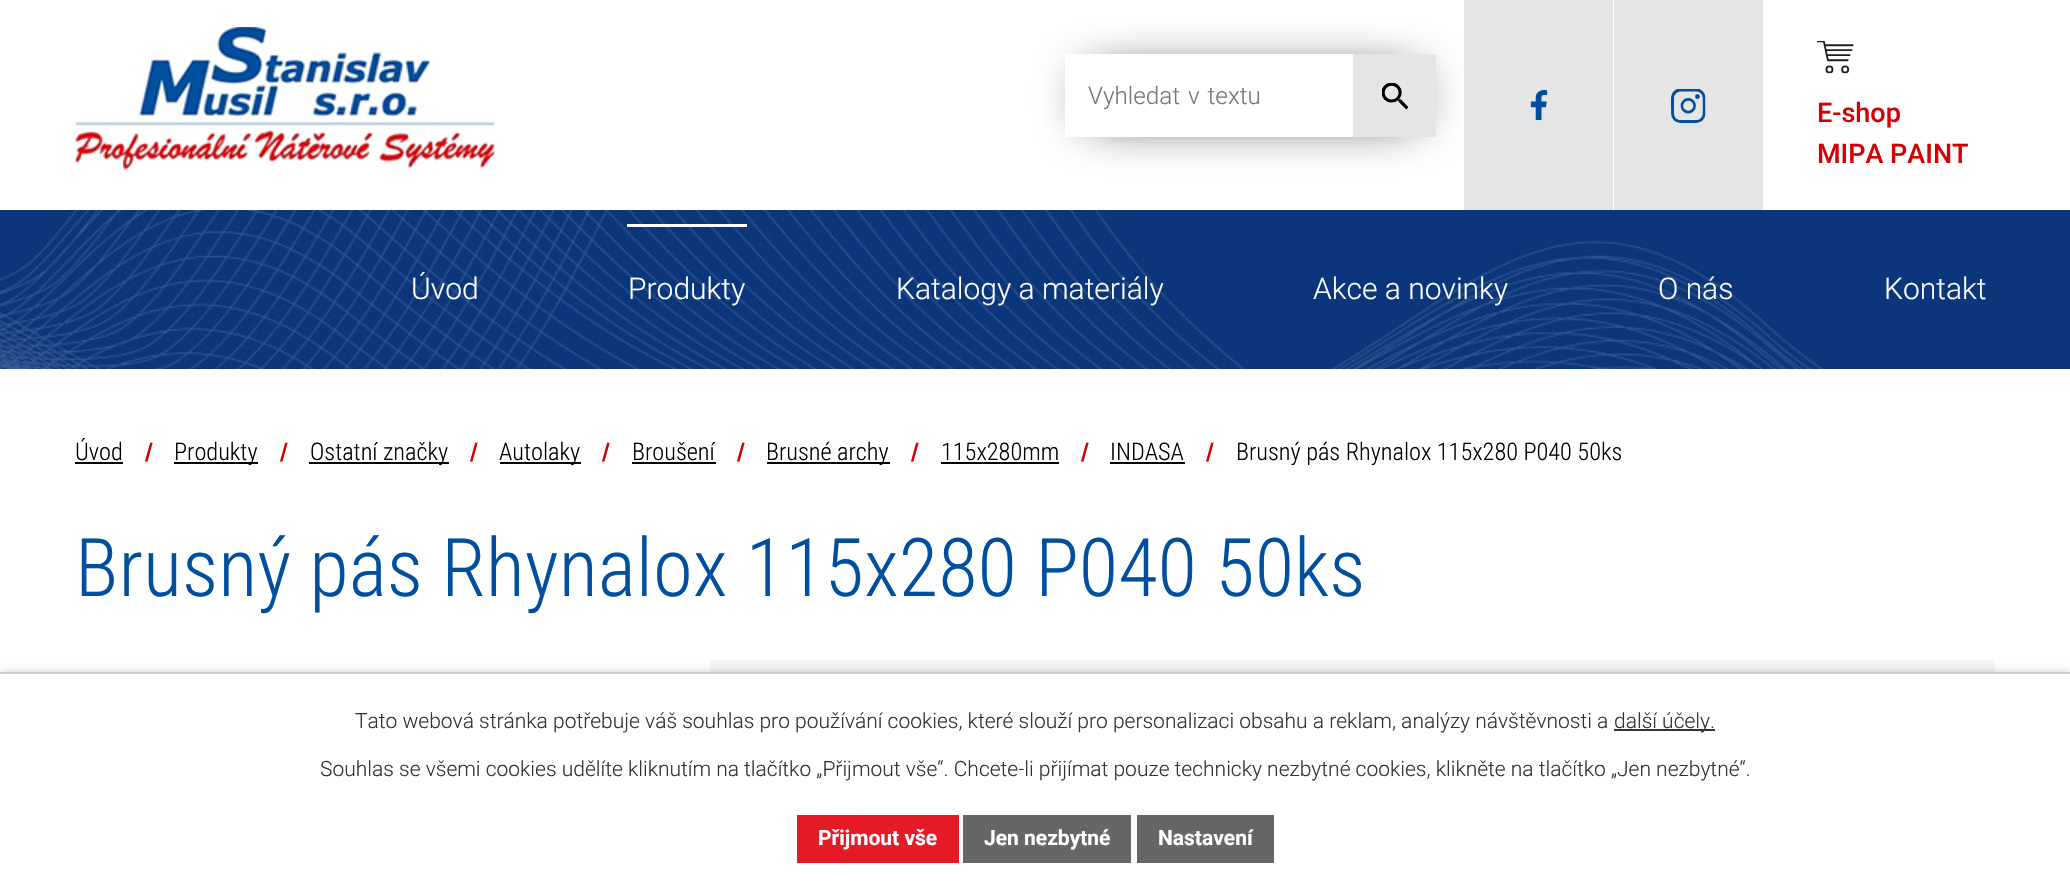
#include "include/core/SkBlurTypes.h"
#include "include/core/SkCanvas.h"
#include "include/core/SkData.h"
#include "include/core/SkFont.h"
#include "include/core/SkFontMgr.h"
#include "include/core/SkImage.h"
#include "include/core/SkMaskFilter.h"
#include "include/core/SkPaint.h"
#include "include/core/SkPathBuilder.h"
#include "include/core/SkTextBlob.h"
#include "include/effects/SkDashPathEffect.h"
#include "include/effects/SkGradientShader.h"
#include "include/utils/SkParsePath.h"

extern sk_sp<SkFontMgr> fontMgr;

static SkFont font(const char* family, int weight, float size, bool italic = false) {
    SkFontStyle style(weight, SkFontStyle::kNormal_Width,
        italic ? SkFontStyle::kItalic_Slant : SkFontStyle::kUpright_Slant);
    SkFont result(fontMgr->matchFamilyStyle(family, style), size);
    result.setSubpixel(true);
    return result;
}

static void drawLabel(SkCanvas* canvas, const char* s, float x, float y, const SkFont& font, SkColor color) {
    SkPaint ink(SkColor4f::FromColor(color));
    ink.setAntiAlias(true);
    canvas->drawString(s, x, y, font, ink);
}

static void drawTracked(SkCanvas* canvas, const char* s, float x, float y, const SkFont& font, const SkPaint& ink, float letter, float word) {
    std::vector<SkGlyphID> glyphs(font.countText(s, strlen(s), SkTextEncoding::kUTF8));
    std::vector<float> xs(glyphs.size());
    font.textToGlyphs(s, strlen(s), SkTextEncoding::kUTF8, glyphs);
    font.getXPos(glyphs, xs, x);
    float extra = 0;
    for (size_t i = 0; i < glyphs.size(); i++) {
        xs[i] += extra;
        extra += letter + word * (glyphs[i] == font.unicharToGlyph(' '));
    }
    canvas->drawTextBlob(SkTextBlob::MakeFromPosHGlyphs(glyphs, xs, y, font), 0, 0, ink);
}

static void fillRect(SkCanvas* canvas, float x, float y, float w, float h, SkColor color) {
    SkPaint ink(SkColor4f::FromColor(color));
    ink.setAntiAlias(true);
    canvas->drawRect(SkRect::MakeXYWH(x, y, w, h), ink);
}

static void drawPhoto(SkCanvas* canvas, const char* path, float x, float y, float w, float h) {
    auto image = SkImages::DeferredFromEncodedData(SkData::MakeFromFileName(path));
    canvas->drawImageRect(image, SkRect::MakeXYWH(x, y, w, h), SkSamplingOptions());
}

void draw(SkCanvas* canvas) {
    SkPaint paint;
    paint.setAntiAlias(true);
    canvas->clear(0xFFFFFFFF);
    drawPhoto(canvas, "assets/img1.png", 75, 27, 420, 143);
    paint.setColor(0xFF000000);
    paint.setMaskFilter(SkMaskFilter::MakeBlur(kNormal_SkBlurStyle, 26));
    canvas->drawRect(SkRect::MakeXYWH(1089, 78, 326, 38), paint);
    paint.setMaskFilter(nullptr);
    fillRect(canvas, 1065, 54, 288, 83, 0xFFFFFFFF);
    SkFont font1 = font("Roboto", 300, 24.25f);
    paint.setColor(0xFF757575);
    drawTracked(canvas, "Vyhledat v textu", 1088, 104, font1, paint, 0, 2);
    fillRect(canvas, 1353, 54, 83, 83, 0xFFE5E5E5);
    drawPhoto(canvas, "assets/img2.png", 1382, 83, 27, 27);
    fillRect(canvas, 1464, 0, 149, 210, 0xFFE5E5E5);
    drawPhoto(canvas, "assets/img3.png", 1530, 90, 18, 30);
    fillRect(canvas, 1614, 0, 149, 210, 0xFFE5E5E5);
    drawPhoto(canvas, "assets/img4.png", 1671, 89, 35, 34);
    drawPhoto(canvas, "assets/img5.png", 1817, 41, 37, 33);
    SkFont font2 = font("Roboto", 500, 27);
    drawLabel(canvas, "E-shop", 1817, 122, font2, 0xFFD20005);
    drawLabel(canvas, "MIPA PAINT", 1817, 163, font2, 0xFFD20005);
    fillRect(canvas, 1824, 210, 246, 159, 0xFF0B367B);
    drawPhoto(canvas, "assets/img6.png", 0, 210, 1824, 159);
    SkFont font3 = font("Roboto", 300, 30);
    drawLabel(canvas, "Úvod", 411, 299, font3, 0xFFFFFFFF);
    fillRect(canvas, 627, 224, 120, 3, 0xFFFFFFFF);
    drawLabel(canvas, "Produkty", 628, 299, font3, 0xFFFFFFFF);
    drawLabel(canvas, "Katalogy a materiály", 896, 299, font3, 0xFFFFFFFF);
    drawLabel(canvas, "Akce a novinky", 1313, 299, font3, 0xFFFFFFFF);
    drawLabel(canvas, "O nás", 1658, 299, font3, 0xFFFFFFFF);
    drawLabel(canvas, "Kontakt", 1884, 299, font3, 0xFFFFFFFF);
    SkFont font4 = font("Roboto Condensed", 300, 24.25f);
    drawLabel(canvas, "Úvod", 75, 460, font4, 0xFF000000);
    fillRect(canvas, 75, 462, 48, 2, 0xFF000000);
    SkFont font5 = font("Roboto Condensed", 700, 24.25f);
    drawLabel(canvas, "/", 145, 460, font5, 0xFFD20005);
    fillRect(canvas, 174, 462, 84, 2, 0xFF000000);
    drawLabel(canvas, "Produkty", 174, 460, font4, 0xFF000000);
    drawLabel(canvas, "/", 280, 460, font5, 0xFFD20005);
    fillRect(canvas, 309, 462, 140, 2, 0xFF000000);
    drawLabel(canvas, "Ostatní značky", 310, 460, font4, 0xFF000000);
    drawLabel(canvas, "/", 470, 460, font5, 0xFFD20005);
    fillRect(canvas, 500, 462, 81, 2, 0xFF000000);
    drawLabel(canvas, "Autolaky", 499, 460, font4, 0xFF000000);
    drawLabel(canvas, "/", 602, 460, font5, 0xFFD20005);
    drawLabel(canvas, "Broušení", 632, 460, font4, 0xFF000000);
    fillRect(canvas, 632, 462, 84, 2, 0xFF000000);
    drawLabel(canvas, "/", 737, 460, font5, 0xFFD20005);
    fillRect(canvas, 767, 462, 123, 2, 0xFF000000);
    drawLabel(canvas, "Brusné archy", 766, 460, font4, 0xFF000000);
    drawLabel(canvas, "/", 911, 460, font5, 0xFFD20005);
    drawLabel(canvas, "115x280mm", 941, 460, font4, 0xFF000000);
    fillRect(canvas, 941, 462, 118, 2, 0xFF000000);
    drawLabel(canvas, "/", 1081, 460, font5, 0xFFD20005);
    drawLabel(canvas, "INDASA", 1110, 460, font4, 0xFF000000);
    fillRect(canvas, 1110, 462, 75, 2, 0xFF000000);
    drawLabel(canvas, "/", 1206, 460, font5, 0xFFD20005);
    drawLabel(canvas, "Brusný pás Rhynalox 115x280 P040 50ks", 1236, 460, font4, 0xFF000000);
    SkFont font6 = font("Roboto Condensed", 300, 81);
    drawLabel(canvas, "Brusný pás Rhynalox 115x280 P040 50ks", 75, 596, font6, 0xFF004F9F);
    fillRect(canvas, 710, 660, 1285, 12, 0xFFF6F5F5);
    paint.setColor(0x33000000);
    paint.setMaskFilter(SkMaskFilter::MakeBlur(kNormal_SkBlurStyle, 4));
    canvas->drawRect(SkRect::MakeXYWH(0, 672, 2070, 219), paint);
    paint.setMaskFilter(nullptr);
    fillRect(canvas, 0, 674, 2070, 216, 0xFFFFFFFF);
    fillRect(canvas, 0, 672, 2070, 2, 0xFFCCCCCC);
    SkFont font7 = font("Roboto", 300, 21);
    drawLabel(canvas, "Tato webová stránka potřebuje váš souhlas pro používání cookies, které slouží pro personalizaci obsahu a reklam, analýzy návštěvnosti a", 355, 728, font7, 0xFF333333);
    fillRect(canvas, 1614, 729, 101, 2, 0xFF333333);
    drawLabel(canvas, "další účely.", 1614, 728, font7, 0xFF333333);
    drawLabel(canvas, "Souhlas se všemi cookies udělíte kliknutím na tlačítko „Přijmout vše“. Chcete-li přijímat pouze technicky nezbytné cookies, klikněte na tlačítko „Jen nezbytné“.", 320, 776, font7, 0xFF333333);
    fillRect(canvas, 797, 815, 162, 48, 0xFFE41B27);
    SkFont font8 = font("Roboto", 700, 21);
    drawLabel(canvas, "Přijmout vše", 818, 845, font8, 0xFFFFFFFF);
    fillRect(canvas, 963, 815, 168, 48, 0xFF666666);
    drawLabel(canvas, "Jen nezbytné", 984, 845, font8, 0xFFFFFFFF);
    fillRect(canvas, 1137, 815, 137, 48, 0xFF666666);
    drawLabel(canvas, "Nastavení", 1158, 845, font8, 0xFFFFFFFF);
}
